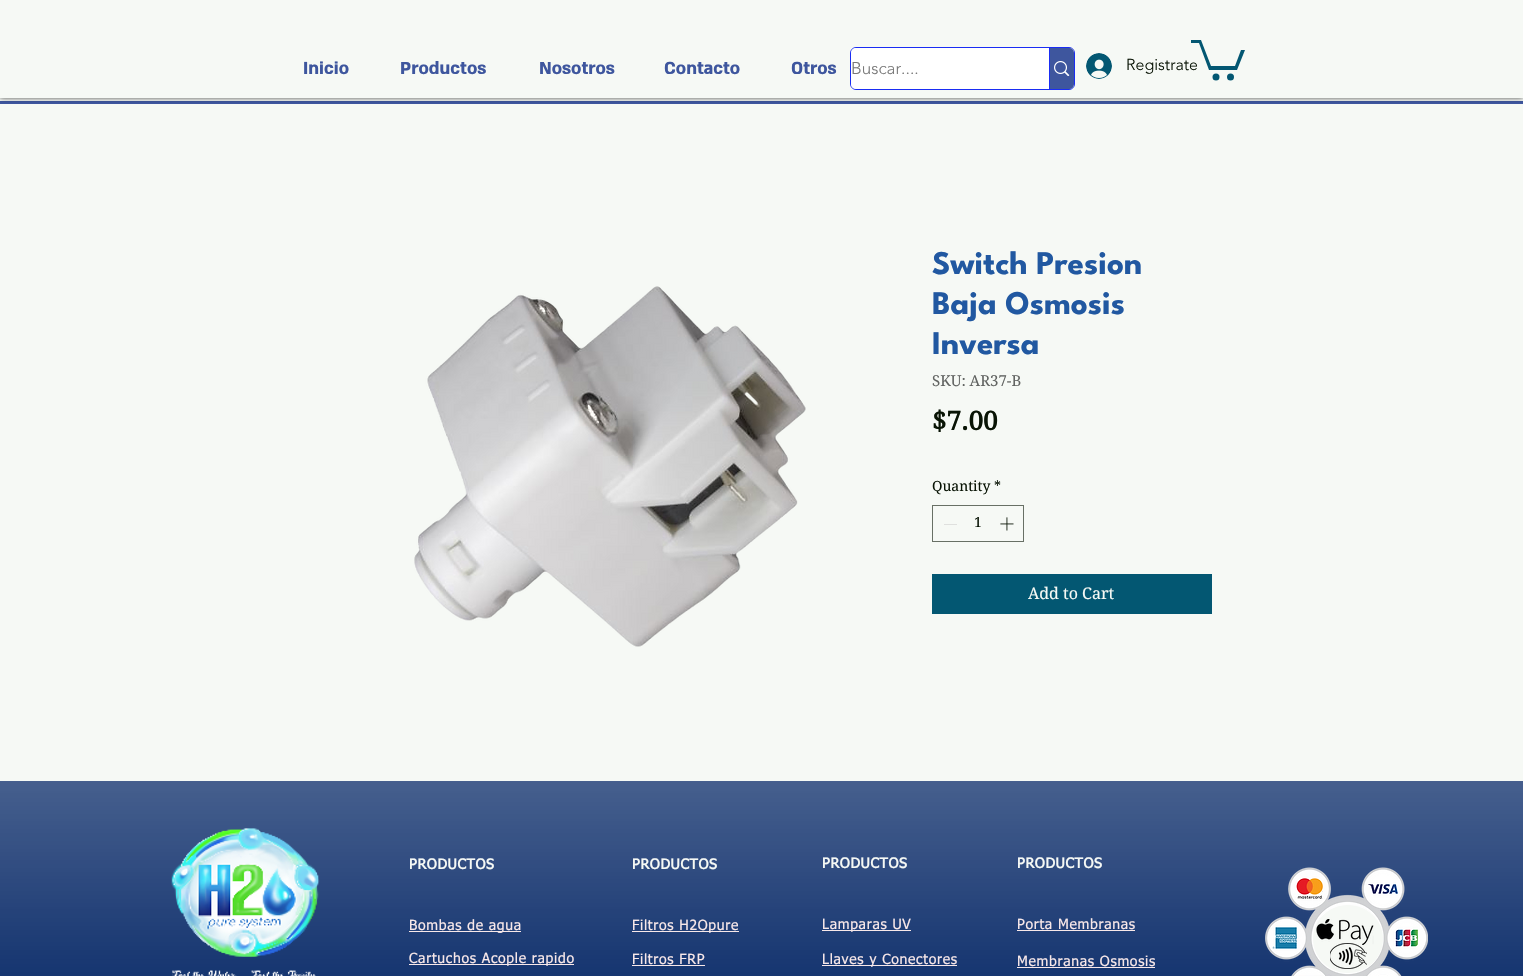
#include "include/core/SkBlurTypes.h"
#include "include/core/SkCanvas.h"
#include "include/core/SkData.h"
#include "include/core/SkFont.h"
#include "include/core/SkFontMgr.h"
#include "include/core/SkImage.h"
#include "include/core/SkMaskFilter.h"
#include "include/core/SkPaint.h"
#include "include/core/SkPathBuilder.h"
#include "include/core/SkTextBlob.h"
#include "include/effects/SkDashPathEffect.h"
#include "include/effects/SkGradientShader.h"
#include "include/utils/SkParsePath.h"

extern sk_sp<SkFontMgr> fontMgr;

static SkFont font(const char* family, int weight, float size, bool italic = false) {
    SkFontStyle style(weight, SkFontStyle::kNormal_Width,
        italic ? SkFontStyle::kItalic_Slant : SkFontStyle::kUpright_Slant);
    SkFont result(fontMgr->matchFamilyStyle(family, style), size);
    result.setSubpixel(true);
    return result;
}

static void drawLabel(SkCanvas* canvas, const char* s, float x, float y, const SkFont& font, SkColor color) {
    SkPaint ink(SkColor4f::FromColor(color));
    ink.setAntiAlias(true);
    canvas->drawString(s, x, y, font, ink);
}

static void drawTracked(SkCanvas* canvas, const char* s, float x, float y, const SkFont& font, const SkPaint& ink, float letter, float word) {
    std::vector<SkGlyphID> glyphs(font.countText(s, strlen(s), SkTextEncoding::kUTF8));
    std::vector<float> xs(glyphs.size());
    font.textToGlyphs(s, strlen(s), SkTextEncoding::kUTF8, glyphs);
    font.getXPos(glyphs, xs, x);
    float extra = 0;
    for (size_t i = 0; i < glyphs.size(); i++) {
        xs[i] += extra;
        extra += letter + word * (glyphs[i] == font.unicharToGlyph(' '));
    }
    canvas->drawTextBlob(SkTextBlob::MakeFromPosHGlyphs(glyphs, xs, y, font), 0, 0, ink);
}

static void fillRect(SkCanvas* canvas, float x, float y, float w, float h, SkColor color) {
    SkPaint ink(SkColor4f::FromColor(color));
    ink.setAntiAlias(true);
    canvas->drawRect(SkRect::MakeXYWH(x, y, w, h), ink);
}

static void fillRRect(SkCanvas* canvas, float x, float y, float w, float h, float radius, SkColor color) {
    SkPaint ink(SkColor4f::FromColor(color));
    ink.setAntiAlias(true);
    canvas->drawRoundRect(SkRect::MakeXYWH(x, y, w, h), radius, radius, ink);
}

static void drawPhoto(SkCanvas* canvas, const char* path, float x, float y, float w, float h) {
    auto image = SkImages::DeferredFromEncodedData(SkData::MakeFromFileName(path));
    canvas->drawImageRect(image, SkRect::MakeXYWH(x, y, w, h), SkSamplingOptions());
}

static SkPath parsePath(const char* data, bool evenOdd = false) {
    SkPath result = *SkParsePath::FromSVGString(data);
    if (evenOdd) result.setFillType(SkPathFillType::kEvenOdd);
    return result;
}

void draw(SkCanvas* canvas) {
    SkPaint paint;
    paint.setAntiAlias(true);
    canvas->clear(0xFFF6F9F5);
    fillRect(canvas, 0, 101, 1523, 3, 0xFF3E569E);
    canvas->save();
    canvas->clipRect(SkRect::MakeXYWH(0, 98, 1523, 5));
    paint.setColor(0xB3000000);
    paint.setMaskFilter(SkMaskFilter::MakeBlur(kNormal_SkBlurStyle, 2.5f));
    canvas->drawRect(SkRect::MakeXYWH(0, 0, 1523, 98), paint);
    paint.setMaskFilter(nullptr);
    canvas->restore();
    SkFont font1 = font("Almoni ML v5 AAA", 700, 20);
    drawLabel(canvas, "Inicio", 303, 74, font1, 0xFF3E569E);
    drawLabel(canvas, "Productos", 400, 74, font1, 0xFF3E569E);
    drawLabel(canvas, "Nosotros", 539, 74, font1, 0xFF3E569E);
    drawLabel(canvas, "Contacto", 664, 74, font1, 0xFF3E569E);
    drawLabel(canvas, "Otros", 791, 74, font1, 0xFF3E569E);
    paint.setStroke(true);
    paint.setStrokeWidth(1);
    paint.setColor(0xFF1A2DF3);
    canvas->drawRoundRect(SkRect::MakeXYWH(850.5f, 47.5f, 224, 42), 5.5f, 5.5f, paint);
    fillRRect(canvas, 851, 48, 223, 41, 5, 0xFFFFFFFF);
    SkFont font2 = font("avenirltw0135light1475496", 300, 17);
    drawLabel(canvas, "Buscar....", 851, 74, font2, 0xFF787878);
    paint.setStroke(false);
    paint.setColor(0xFF3E569E);
    canvas->drawPath(parsePath("M1049 48H1069C1072 48 1074 50 1074 53V84C1074 87 1072 89 1069 89H1049Z"), paint);
    fillRect(canvas, 1049, 48, 1, 41, 0xFF1A2DF3);
    drawPhoto(canvas, "assets/img1.png", 1054, 61, 16, 15);
    drawPhoto(canvas, "assets/img2.png", 1086, 53, 26, 26);
    SkFont font3 = font("avenirltw0135light1475496", 300, 16);
    drawLabel(canvas, "Registrate", 1126, 70, font3, 0xFF091405);
    paint.setColor(0xFF035772);
    canvas->drawPath(parsePath("M1245 50L1237 70H1209L1199 43H1191V40H1201L1211 66H1235L1241 50"), paint);
    canvas->drawCircle(1230.5f, 77, 3.5f, paint);
    canvas->drawCircle(1216, 77, 3.5f, paint);
    drawPhoto(canvas, "assets/img3.png", 414, 286, 392, 361);
    SkFont font4 = font("League Spartan", 700, 33);
    drawLabel(canvas, "Switch Presion", 932, 274, font4, 0xFF2158A1);
    drawLabel(canvas, "Baja Osmosis", 932, 314, font4, 0xFF2158A1);
    drawLabel(canvas, "Inversa", 932, 354, font4, 0xFF2158A1);
    SkFont font5 = font("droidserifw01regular", 400, 15);
    drawLabel(canvas, "SKU: AR37-B", 932, 386, font5, 0xFF626462);
    SkFont font6 = font("droidserifw01regular", 700, 26);
    drawLabel(canvas, "$7.00", 932, 430, font6, 0xFF091405);
    SkFont font7 = font("droidserifw01regular", 400, 14);
    drawLabel(canvas, "Quantity", 932, 491, font7, 0xFF091405);
    drawLabel(canvas, "*", 994, 491, font7, 0xFF091405);
    paint.setStroke(true);
    paint.setColor(0xFF687065);
    canvas->drawRect(SkRect::MakeXYWH(932.5f, 505.5f, 91, 36), paint);
    fillRect(canvas, 944, 524, 13, 1, 0xFFDFE0DE);
    drawLabel(canvas, "1", 974, 527, font7, 0xFF091405);
    drawPhoto(canvas, "assets/img4.png", 1000, 517, 14, 14);
    fillRect(canvas, 932, 574, 280, 40, 0xFF035772);
    SkFont font8 = font("droidserifw01regular", 400, 16);
    drawLabel(canvas, "Add to Cart", 1028, 599, font8, 0xFFF6F9F5);
    fillRect(canvas, 0, 781, 1523, 195, 0xFF052766);
    drawPhoto(canvas, "assets/img5.png", 0, 781, 1523, 195);
    drawPhoto(canvas, "assets/img6.png", 171, 828, 149, 148);
    SkFont font9 = font("tahoma", 700, 14);
    paint.setStroke(false);
    paint.setColor(0xFFF6F9F5);
    drawTracked(canvas, "PRODUCTOS", 409, 869, font9, paint, 0.7f, 0);
    drawTracked(canvas, "PRODUCTOS", 632, 869, font9, paint, 0.7f, 0);
    drawTracked(canvas, "PRODUCTOS", 822, 868, font9, paint, 0.7f, 0);
    drawTracked(canvas, "PRODUCTOS", 1017, 868, font9, paint, 0.7f, 0);
    fillRect(canvas, 409, 931, 112, 1, 0xFFF8E8E9);
    SkFont font10 = font("tahoma", 400, 14);
    paint.setColor(0xFFF8E8E9);
    drawTracked(canvas, "Bombas de agua", 409, 930, font10, paint, 0.7f, 0);
    fillRect(canvas, 632, 931, 107, 1, 0xFFF8E8E9);
    drawTracked(canvas, "Filtros H2Opure", 632, 930, font10, paint, 0.7f, 0);
    fillRect(canvas, 822, 930, 89, 1, 0xFFF8E8E9);
    drawTracked(canvas, "Lamparas UV", 822, 929, font10, paint, 0.7f, 0);
    drawTracked(canvas, "Porta Membranas", 1017, 929, font10, paint, 0.7f, 0);
    fillRect(canvas, 1017, 930, 118, 1, 0xFFF8E8E9);
    fillRect(canvas, 409, 964, 165, 1, 0xFFF8E8E9);
    drawTracked(canvas, "Cartuchos Acople rapido", 409, 963, font10, paint, 0.7f, 0);
    drawTracked(canvas, "Filtros FRP", 632, 964, font10, paint, 0.7f, 0);
    fillRect(canvas, 632, 965, 73, 1, 0xFFF8E8E9);
    fillRect(canvas, 822, 965, 135, 1, 0xFFF8E8E9);
    drawTracked(canvas, "Llaves y Conectores", 822, 964, font10, paint, 0.7f, 0);
    drawTracked(canvas, "Membranas Osmosis", 1017, 966, font10, paint, 0.7f, 0);
    fillRect(canvas, 1017, 967, 138, 1, 0xFFF8E8E9);
    drawPhoto(canvas, "assets/img7.png", 1265, 867, 163, 109);
    paint.setColor(0xFFF6F9F5);
    canvas->drawPath(parsePath("M1383 939C1383 958 1367 973 1348 973C1329 973 1313 958 1313 939C1313 920 1329 905 1348 905C1367 905 1383 920 1383 939Z"), paint);
    drawPhoto(canvas, "assets/img8.png", 1316, 919, 58, 26);
    drawPhoto(canvas, "assets/img9.png", 1330, 943, 37, 26);
}
